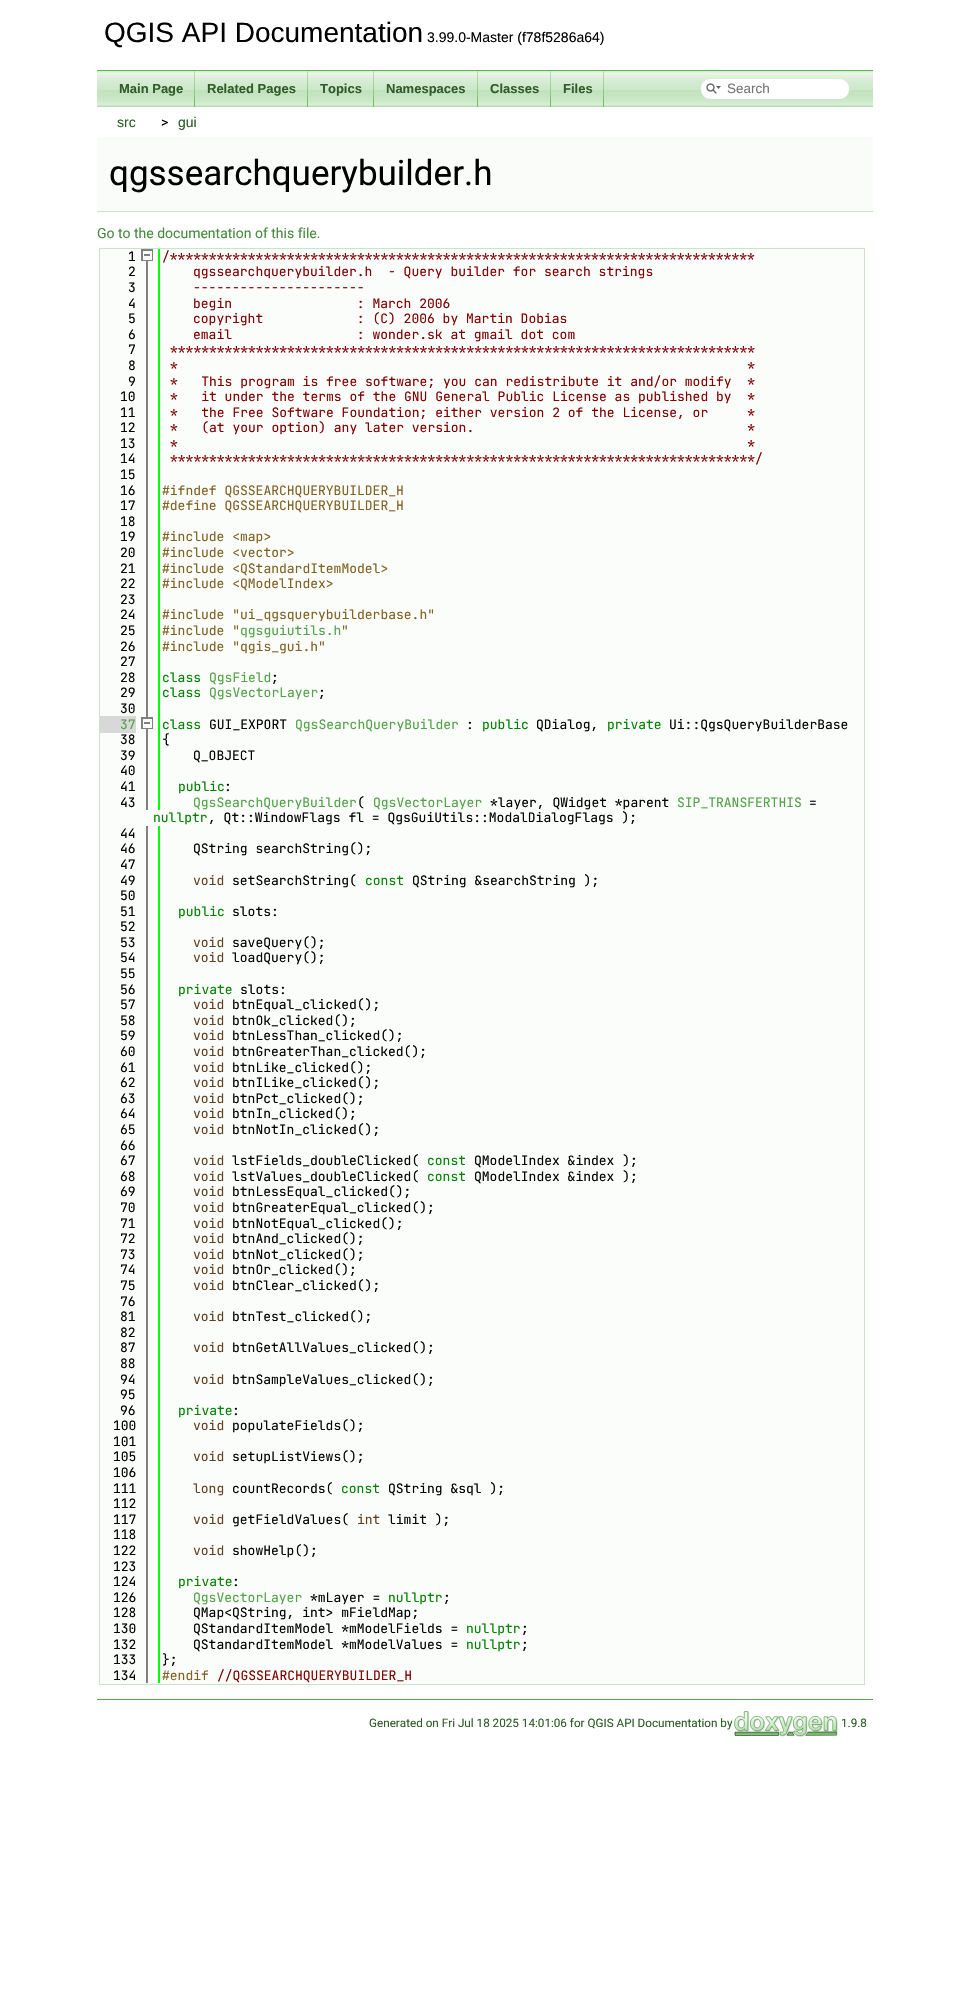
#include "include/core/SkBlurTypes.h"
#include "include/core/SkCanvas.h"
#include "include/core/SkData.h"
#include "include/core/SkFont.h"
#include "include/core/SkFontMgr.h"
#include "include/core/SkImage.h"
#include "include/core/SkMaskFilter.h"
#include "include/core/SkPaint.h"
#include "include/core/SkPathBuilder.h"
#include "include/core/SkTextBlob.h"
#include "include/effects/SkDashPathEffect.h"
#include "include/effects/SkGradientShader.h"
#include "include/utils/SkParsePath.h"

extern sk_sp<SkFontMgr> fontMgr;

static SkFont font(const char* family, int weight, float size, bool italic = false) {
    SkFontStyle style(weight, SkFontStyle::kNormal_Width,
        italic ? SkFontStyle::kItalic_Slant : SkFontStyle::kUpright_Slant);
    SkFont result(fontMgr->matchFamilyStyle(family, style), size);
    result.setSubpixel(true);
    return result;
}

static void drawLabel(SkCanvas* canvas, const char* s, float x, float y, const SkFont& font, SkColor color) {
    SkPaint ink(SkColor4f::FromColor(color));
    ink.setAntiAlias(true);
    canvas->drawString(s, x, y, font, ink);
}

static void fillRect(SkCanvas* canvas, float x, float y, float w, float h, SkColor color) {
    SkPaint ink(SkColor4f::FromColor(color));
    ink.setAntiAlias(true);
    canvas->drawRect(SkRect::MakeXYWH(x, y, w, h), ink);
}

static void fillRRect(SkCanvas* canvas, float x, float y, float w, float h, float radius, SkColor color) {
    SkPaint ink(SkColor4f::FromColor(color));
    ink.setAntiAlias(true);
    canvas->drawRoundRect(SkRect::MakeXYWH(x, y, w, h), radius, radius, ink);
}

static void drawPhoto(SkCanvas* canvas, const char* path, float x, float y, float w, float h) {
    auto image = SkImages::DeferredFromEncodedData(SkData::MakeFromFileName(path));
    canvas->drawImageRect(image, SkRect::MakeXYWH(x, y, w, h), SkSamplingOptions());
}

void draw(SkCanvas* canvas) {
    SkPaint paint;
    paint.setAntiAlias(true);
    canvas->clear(0xFFFFFFFF);
    fillRect(canvas, 97, 70, 776, 1, 0xFF5FB453);
    SkFont font1 = font("Liberation Sans", 400, 28);
    drawLabel(canvas, "QGIS API Documentation", 104, 42, font1, 0xFF000000);
    SkFont font2 = font("Liberation Sans", 400, 14);
    drawLabel(canvas, "3.99.0-Master (f78f5286a64)", 427, 42, font2, 0xFF000000);
    drawPhoto(canvas, "assets/img1.png", 97, 71, 776, 36);
    drawPhoto(canvas, "assets/img2.png", 194, 71, 1, 36);
    SkFont font3 = font("Liberation Sans", 700, 13);
    drawLabel(canvas, "Main Page", 119, 93, font3, 0xFF2E5D28);
    drawPhoto(canvas, "assets/img2.png", 307, 71, 1, 36);
    drawLabel(canvas, "Related Pages", 207, 93, font3, 0xFF2E5D28);
    drawPhoto(canvas, "assets/img2.png", 373, 71, 1, 36);
    drawLabel(canvas, "Topics", 320, 93, font3, 0xFF2E5D28);
    drawPhoto(canvas, "assets/img2.png", 477, 71, 1, 36);
    drawLabel(canvas, "Namespaces", 386, 93, font3, 0xFF2E5D28);
    drawPhoto(canvas, "assets/img2.png", 550, 71, 1, 36);
    drawLabel(canvas, "Classes", 490, 93, font3, 0xFF2E5D28);
    drawPhoto(canvas, "assets/img2.png", 603, 71, 1, 36);
    drawLabel(canvas, "Files", 563, 93, font3, 0xFF2E5D28);
    fillRRect(canvas, 701, 79, 148, 20, 9, 0xFFFFFFFF);
    drawPhoto(canvas, "assets/img3.png", 706, 83, 15, 11);
    SkFont font4 = font("Liberation Sans", 400, 13.5f);
    drawLabel(canvas, "Search", 727, 93, font4, 0xFF757575);
    drawLabel(canvas, "src", 117, 127, font2, 0xFF2E5D28);
    SkFont font5 = font("Roboto", 400, 14);
    drawLabel(canvas, ">", 161, 127, font5, 0xFF000000);
    drawLabel(canvas, "gui", 178, 127, font2, 0xFF2E5D28);
    fillRect(canvas, 97, 137, 776, 74, 0xFFF9FCF9);
    fillRect(canvas, 97, 211, 776, 1, 0xFFC8E5C4);
    SkFont font6 = font("Roboto", 400, 35);
    drawLabel(canvas, "qgssearchquerybuilder.h", 109, 185, font6, 0xFF000000);
    drawLabel(canvas, "Go to the documentation of this file.", 97, 238, font5, 0xFF468C3D);
    paint.setColor(0xFFFBFDFB);
    canvas->drawRect(SkRect::MakeXYWH(99.5f, 248.5f, 765, 1436), paint);
    paint.setStroke(true);
    paint.setStrokeWidth(1);
    paint.setColor(0xFFC8E5C4);
    canvas->drawRect(SkRect::MakeXYWH(99.5f, 248.5f, 765, 1436), paint);
    fillRect(canvas, 146, 261, 2, 456, 0xFF808080);
    fillRect(canvas, 158, 249, 2, 561, 0xFF00FF00);
    SkFont font7 = font("JetBrains Mono", 400, 13);
    drawLabel(canvas, "1", 128, 261, font7, 0xFF000000);
    fillRect(canvas, 141, 249, 12, 12, 0xFF808080);
    fillRect(canvas, 143, 251, 9, 9, 0xFFFCFCFC);
    fillRect(canvas, 144, 254, 6, 2, 0xFF808080);
    drawLabel(canvas, "/***************************************************************************", 162, 261, font7, 0xFF800000);
    drawLabel(canvas, "2", 128, 276, font7, 0xFF000000);
    drawLabel(canvas, "qgssearchquerybuilder.h  - Query builder for search strings", 193, 276, font7, 0xFF800000);
    drawLabel(canvas, "3", 128, 292, font7, 0xFF000000);
    drawLabel(canvas, "----------------------", 193, 292, font7, 0xFF800000);
    drawLabel(canvas, "4", 128, 308, font7, 0xFF000000);
    drawLabel(canvas, "begin                : March 2006", 193, 308, font7, 0xFF800000);
    drawLabel(canvas, "5", 128, 323, font7, 0xFF000000);
    drawLabel(canvas, "copyright            : (C) 2006 by Martin Dobias", 193, 323, font7, 0xFF800000);
    drawLabel(canvas, "6", 128, 339, font7, 0xFF000000);
    drawLabel(canvas, "email                : wonder.sk at gmail dot com", 193, 339, font7, 0xFF800000);
    drawLabel(canvas, "7", 128, 354, font7, 0xFF000000);
    drawLabel(canvas, "***************************************************************************", 170, 354, font7, 0xFF800000);
    drawLabel(canvas, "8", 128, 370, font7, 0xFF000000);
    drawLabel(canvas, "*                                                                         *", 170, 370, font7, 0xFF800000);
    drawLabel(canvas, "9", 128, 386, font7, 0xFF000000);
    drawLabel(canvas, "*   This program is free software; you can redistribute it and/or modify  *", 170, 386, font7, 0xFF800000);
    drawLabel(canvas, "10", 120, 401, font7, 0xFF000000);
    drawLabel(canvas, "*   it under the terms of the GNU General Public License as published by  *", 170, 401, font7, 0xFF800000);
    drawLabel(canvas, "11", 120, 417, font7, 0xFF000000);
    drawLabel(canvas, "*   the Free Software Foundation; either version 2 of the License, or     *", 170, 417, font7, 0xFF800000);
    drawLabel(canvas, "12", 120, 432, font7, 0xFF000000);
    drawLabel(canvas, "*   (at your option) any later version.                                   *", 170, 432, font7, 0xFF800000);
    drawLabel(canvas, "13", 120, 448, font7, 0xFF000000);
    drawLabel(canvas, "*                                                                         *", 170, 448, font7, 0xFF800000);
    drawLabel(canvas, "14", 120, 463, font7, 0xFF000000);
    drawLabel(canvas, "***************************************************************************/", 170, 463, font7, 0xFF800000);
    drawLabel(canvas, "15", 120, 479, font7, 0xFF000000);
    drawLabel(canvas, "16", 120, 495, font7, 0xFF000000);
    drawLabel(canvas, "#ifndef QGSSEARCHQUERYBUILDER_H", 162, 495, font7, 0xFF806020);
    drawLabel(canvas, "17", 120, 510, font7, 0xFF000000);
    drawLabel(canvas, "#define QGSSEARCHQUERYBUILDER_H", 162, 510, font7, 0xFF806020);
    drawLabel(canvas, "18", 120, 526, font7, 0xFF000000);
    drawLabel(canvas, "19", 120, 541, font7, 0xFF000000);
    drawLabel(canvas, "#include <map>", 162, 541, font7, 0xFF806020);
    drawLabel(canvas, "20", 120, 557, font7, 0xFF000000);
    drawLabel(canvas, "#include <vector>", 162, 557, font7, 0xFF806020);
    drawLabel(canvas, "21", 120, 573, font7, 0xFF000000);
    drawLabel(canvas, "#include <QStandardItemModel>", 162, 573, font7, 0xFF806020);
    drawLabel(canvas, "22", 120, 588, font7, 0xFF000000);
    drawLabel(canvas, "#include <QModelIndex>", 162, 588, font7, 0xFF806020);
    drawLabel(canvas, "23", 120, 604, font7, 0xFF000000);
    drawLabel(canvas, "24", 120, 619, font7, 0xFF000000);
    drawLabel(canvas, "#include \"ui_qgsquerybuilderbase.h\"", 162, 619, font7, 0xFF806020);
    drawLabel(canvas, "25", 120, 635, font7, 0xFF000000);
    drawLabel(canvas, "#include \"", 162, 635, font7, 0xFF806020);
    drawLabel(canvas, "qgsguiutils.h", 240, 635, font7, 0xFF51A246);
    drawLabel(canvas, "\"", 341, 635, font7, 0xFF806020);
    drawLabel(canvas, "26", 120, 651, font7, 0xFF000000);
    drawLabel(canvas, "#include \"qgis_gui.h\"", 162, 651, font7, 0xFF806020);
    drawLabel(canvas, "27", 120, 666, font7, 0xFF000000);
    drawLabel(canvas, "28", 120, 682, font7, 0xFF000000);
    drawLabel(canvas, "class", 162, 682, font7, 0xFF008000);
    drawLabel(canvas, "QgsField", 209, 682, font7, 0xFF51A246);
    drawLabel(canvas, ";", 271, 682, font7, 0xFF000000);
    drawLabel(canvas, "29", 120, 697, font7, 0xFF000000);
    drawLabel(canvas, "class", 162, 697, font7, 0xFF008000);
    drawLabel(canvas, "QgsVectorLayer", 209, 697, font7, 0xFF51A246);
    drawLabel(canvas, ";", 318, 697, font7, 0xFF000000);
    drawLabel(canvas, "30", 120, 713, font7, 0xFF000000);
    fillRect(canvas, 146, 729, 2, 81, 0xFF808080);
    fillRect(canvas, 100, 716, 36, 17, 0xFFD8D8D8);
    drawLabel(canvas, "37", 120, 729, font7, 0xFF51A246);
    fillRect(canvas, 141, 717, 12, 12, 0xFF808080);
    fillRect(canvas, 143, 719, 9, 9, 0xFFFCFCFC);
    fillRect(canvas, 144, 722, 6, 2, 0xFF808080);
    drawLabel(canvas, "class", 162, 729, font7, 0xFF008000);
    drawLabel(canvas, "GUI_EXPORT", 209, 729, font7, 0xFF000000);
    drawLabel(canvas, "QgsSearchQueryBuilder", 295, 729, font7, 0xFF51A246);
    drawLabel(canvas, ":", 466, 729, font7, 0xFF000000);
    drawLabel(canvas, "public", 482, 729, font7, 0xFF008000);
    drawLabel(canvas, "QDialog,", 536, 729, font7, 0xFF000000);
    drawLabel(canvas, "private", 607, 729, font7, 0xFF008000);
    drawLabel(canvas, "Ui::QgsQueryBuilderBase", 669, 729, font7, 0xFF000000);
    drawLabel(canvas, "38", 120, 744, font7, 0xFF000000);
    drawLabel(canvas, "{", 162, 744, font7, 0xFF000000);
    drawLabel(canvas, "39", 120, 760, font7, 0xFF000000);
    drawLabel(canvas, "Q_OBJECT", 193, 760, font7, 0xFF000000);
    drawLabel(canvas, "40", 120, 775, font7, 0xFF000000);
    drawLabel(canvas, "41", 120, 791, font7, 0xFF000000);
    drawLabel(canvas, "public", 178, 791, font7, 0xFF008000);
    drawLabel(canvas, ":", 224, 791, font7, 0xFF000000);
    drawLabel(canvas, "43", 120, 807, font7, 0xFF000000);
    drawLabel(canvas, "QgsSearchQueryBuilder", 193, 807, font7, 0xFF51A246);
    drawLabel(canvas, "(", 357, 807, font7, 0xFF000000);
    drawLabel(canvas, "QgsVectorLayer", 373, 807, font7, 0xFF51A246);
    drawLabel(canvas, "*layer, QWidget *parent", 490, 807, font7, 0xFF000000);
    drawLabel(canvas, "SIP_TRANSFERTHIS", 677, 807, font7, 0xFF51A246);
    drawLabel(canvas, "=", 809, 807, font7, 0xFF000000);
    drawLabel(canvas, "nullptr", 153, 822, font7, 0xFF008000);
    drawLabel(canvas, ", Qt::WindowFlags fl = QgsGuiUtils::ModalDialogFlags );", 208, 822, font7, 0xFF000000);
    fillRect(canvas, 146, 826, 2, 857, 0xFF808080);
    fillRect(canvas, 158, 826, 2, 857, 0xFF00FF00);
    drawLabel(canvas, "44", 120, 838, font7, 0xFF000000);
    drawLabel(canvas, "46", 120, 853, font7, 0xFF000000);
    drawLabel(canvas, "QString searchString();", 193, 853, font7, 0xFF000000);
    drawLabel(canvas, "47", 120, 869, font7, 0xFF000000);
    drawLabel(canvas, "49", 120, 885, font7, 0xFF000000);
    drawLabel(canvas, "void", 193, 885, font7, 0xFF604020);
    drawLabel(canvas, "setSearchString(", 232, 885, font7, 0xFF000000);
    drawLabel(canvas, "const", 365, 885, font7, 0xFF008000);
    drawLabel(canvas, "QString &searchString );", 412, 885, font7, 0xFF000000);
    drawLabel(canvas, "50", 120, 900, font7, 0xFF000000);
    drawLabel(canvas, "51", 120, 916, font7, 0xFF000000);
    drawLabel(canvas, "public", 178, 916, font7, 0xFF008000);
    drawLabel(canvas, "slots:", 232, 916, font7, 0xFF000000);
    drawLabel(canvas, "52", 120, 931, font7, 0xFF000000);
    drawLabel(canvas, "53", 120, 947, font7, 0xFF000000);
    drawLabel(canvas, "void", 193, 947, font7, 0xFF604020);
    drawLabel(canvas, "saveQuery();", 232, 947, font7, 0xFF000000);
    drawLabel(canvas, "54", 120, 962, font7, 0xFF000000);
    drawLabel(canvas, "void", 193, 962, font7, 0xFF604020);
    drawLabel(canvas, "loadQuery();", 232, 962, font7, 0xFF000000);
    drawLabel(canvas, "55", 120, 978, font7, 0xFF000000);
    drawLabel(canvas, "56", 120, 994, font7, 0xFF000000);
    drawLabel(canvas, "private", 178, 994, font7, 0xFF008000);
    drawLabel(canvas, "slots:", 240, 994, font7, 0xFF000000);
    drawLabel(canvas, "57", 120, 1009, font7, 0xFF000000);
    drawLabel(canvas, "void", 193, 1009, font7, 0xFF604020);
    drawLabel(canvas, "btnEqual_clicked();", 232, 1009, font7, 0xFF000000);
    drawLabel(canvas, "58", 120, 1025, font7, 0xFF000000);
    drawLabel(canvas, "void", 193, 1025, font7, 0xFF604020);
    drawLabel(canvas, "btnOk_clicked();", 232, 1025, font7, 0xFF000000);
    drawLabel(canvas, "59", 120, 1040, font7, 0xFF000000);
    drawLabel(canvas, "void", 193, 1040, font7, 0xFF604020);
    drawLabel(canvas, "btnLessThan_clicked();", 232, 1040, font7, 0xFF000000);
    drawLabel(canvas, "60", 120, 1056, font7, 0xFF000000);
    drawLabel(canvas, "void", 193, 1056, font7, 0xFF604020);
    drawLabel(canvas, "btnGreaterThan_clicked();", 232, 1056, font7, 0xFF000000);
    drawLabel(canvas, "61", 120, 1072, font7, 0xFF000000);
    drawLabel(canvas, "void", 193, 1072, font7, 0xFF604020);
    drawLabel(canvas, "btnLike_clicked();", 232, 1072, font7, 0xFF000000);
    drawLabel(canvas, "62", 120, 1087, font7, 0xFF000000);
    drawLabel(canvas, "void", 193, 1087, font7, 0xFF604020);
    drawLabel(canvas, "btnILike_clicked();", 232, 1087, font7, 0xFF000000);
    drawLabel(canvas, "63", 120, 1103, font7, 0xFF000000);
    drawLabel(canvas, "void", 193, 1103, font7, 0xFF604020);
    drawLabel(canvas, "btnPct_clicked();", 232, 1103, font7, 0xFF000000);
    drawLabel(canvas, "64", 120, 1118, font7, 0xFF000000);
    drawLabel(canvas, "void", 193, 1118, font7, 0xFF604020);
    drawLabel(canvas, "btnIn_clicked();", 232, 1118, font7, 0xFF000000);
    drawLabel(canvas, "65", 120, 1134, font7, 0xFF000000);
    drawLabel(canvas, "void", 193, 1134, font7, 0xFF604020);
    drawLabel(canvas, "btnNotIn_clicked();", 232, 1134, font7, 0xFF000000);
    drawLabel(canvas, "66", 120, 1150, font7, 0xFF000000);
    drawLabel(canvas, "67", 120, 1165, font7, 0xFF000000);
    drawLabel(canvas, "void", 193, 1165, font7, 0xFF604020);
    drawLabel(canvas, "lstFields_doubleClicked(", 232, 1165, font7, 0xFF000000);
    drawLabel(canvas, "const", 427, 1165, font7, 0xFF008000);
    drawLabel(canvas, "QModelIndex &index );", 474, 1165, font7, 0xFF000000);
    drawLabel(canvas, "68", 120, 1181, font7, 0xFF000000);
    drawLabel(canvas, "void", 193, 1181, font7, 0xFF604020);
    drawLabel(canvas, "lstValues_doubleClicked(", 232, 1181, font7, 0xFF000000);
    drawLabel(canvas, "const", 427, 1181, font7, 0xFF008000);
    drawLabel(canvas, "QModelIndex &index );", 474, 1181, font7, 0xFF000000);
    drawLabel(canvas, "69", 120, 1196, font7, 0xFF000000);
    drawLabel(canvas, "void", 193, 1196, font7, 0xFF604020);
    drawLabel(canvas, "btnLessEqual_clicked();", 232, 1196, font7, 0xFF000000);
    drawLabel(canvas, "70", 120, 1212, font7, 0xFF000000);
    drawLabel(canvas, "void", 193, 1212, font7, 0xFF604020);
    drawLabel(canvas, "btnGreaterEqual_clicked();", 232, 1212, font7, 0xFF000000);
    drawLabel(canvas, "71", 120, 1228, font7, 0xFF000000);
    drawLabel(canvas, "void", 193, 1228, font7, 0xFF604020);
    drawLabel(canvas, "btnNotEqual_clicked();", 232, 1228, font7, 0xFF000000);
    drawLabel(canvas, "72", 120, 1243, font7, 0xFF000000);
    drawLabel(canvas, "void", 193, 1243, font7, 0xFF604020);
    drawLabel(canvas, "btnAnd_clicked();", 232, 1243, font7, 0xFF000000);
    drawLabel(canvas, "73", 120, 1259, font7, 0xFF000000);
    drawLabel(canvas, "void", 193, 1259, font7, 0xFF604020);
    drawLabel(canvas, "btnNot_clicked();", 232, 1259, font7, 0xFF000000);
    drawLabel(canvas, "74", 120, 1274, font7, 0xFF000000);
    drawLabel(canvas, "void", 193, 1274, font7, 0xFF604020);
    drawLabel(canvas, "btnOr_clicked();", 232, 1274, font7, 0xFF000000);
    drawLabel(canvas, "75", 120, 1290, font7, 0xFF000000);
    drawLabel(canvas, "void", 193, 1290, font7, 0xFF604020);
    drawLabel(canvas, "btnClear_clicked();", 232, 1290, font7, 0xFF000000);
    drawLabel(canvas, "76", 120, 1306, font7, 0xFF000000);
    drawLabel(canvas, "81", 120, 1321, font7, 0xFF000000);
    drawLabel(canvas, "void", 193, 1321, font7, 0xFF604020);
    drawLabel(canvas, "btnTest_clicked();", 232, 1321, font7, 0xFF000000);
    drawLabel(canvas, "82", 120, 1337, font7, 0xFF000000);
    drawLabel(canvas, "87", 120, 1352, font7, 0xFF000000);
    drawLabel(canvas, "void", 193, 1352, font7, 0xFF604020);
    drawLabel(canvas, "btnGetAllValues_clicked();", 232, 1352, font7, 0xFF000000);
    drawLabel(canvas, "88", 120, 1368, font7, 0xFF000000);
    drawLabel(canvas, "94", 120, 1384, font7, 0xFF000000);
    drawLabel(canvas, "void", 193, 1384, font7, 0xFF604020);
    drawLabel(canvas, "btnSampleValues_clicked();", 232, 1384, font7, 0xFF000000);
    drawLabel(canvas, "95", 120, 1399, font7, 0xFF000000);
    drawLabel(canvas, "96", 120, 1415, font7, 0xFF000000);
    drawLabel(canvas, "private", 178, 1415, font7, 0xFF008000);
    drawLabel(canvas, ":", 232, 1415, font7, 0xFF000000);
    drawLabel(canvas, "100", 113, 1430, font7, 0xFF000000);
    drawLabel(canvas, "void", 193, 1430, font7, 0xFF604020);
    drawLabel(canvas, "populateFields();", 232, 1430, font7, 0xFF000000);
    drawLabel(canvas, "101", 113, 1446, font7, 0xFF000000);
    drawLabel(canvas, "105", 113, 1461, font7, 0xFF000000);
    drawLabel(canvas, "void", 193, 1461, font7, 0xFF604020);
    drawLabel(canvas, "setupListViews();", 232, 1461, font7, 0xFF000000);
    drawLabel(canvas, "106", 113, 1477, font7, 0xFF000000);
    drawLabel(canvas, "111", 113, 1493, font7, 0xFF000000);
    drawLabel(canvas, "long", 193, 1493, font7, 0xFF604020);
    drawLabel(canvas, "countRecords(", 232, 1493, font7, 0xFF000000);
    drawLabel(canvas, "const", 341, 1493, font7, 0xFF008000);
    drawLabel(canvas, "QString &sql );", 388, 1493, font7, 0xFF000000);
    drawLabel(canvas, "112", 113, 1508, font7, 0xFF000000);
    drawLabel(canvas, "117", 113, 1524, font7, 0xFF000000);
    drawLabel(canvas, "void", 193, 1524, font7, 0xFF604020);
    drawLabel(canvas, "getFieldValues(", 232, 1524, font7, 0xFF000000);
    drawLabel(canvas, "int", 357, 1524, font7, 0xFF604020);
    drawLabel(canvas, "limit );", 388, 1524, font7, 0xFF000000);
    drawLabel(canvas, "118", 113, 1539, font7, 0xFF000000);
    drawLabel(canvas, "122", 113, 1555, font7, 0xFF000000);
    drawLabel(canvas, "void", 193, 1555, font7, 0xFF604020);
    drawLabel(canvas, "showHelp();", 232, 1555, font7, 0xFF000000);
    drawLabel(canvas, "123", 113, 1571, font7, 0xFF000000);
    drawLabel(canvas, "124", 113, 1586, font7, 0xFF000000);
    drawLabel(canvas, "private", 178, 1586, font7, 0xFF008000);
    drawLabel(canvas, ":", 232, 1586, font7, 0xFF000000);
    drawLabel(canvas, "126", 113, 1602, font7, 0xFF000000);
    drawLabel(canvas, "QgsVectorLayer", 193, 1602, font7, 0xFF51A246);
    drawLabel(canvas, "*mLayer =", 310, 1602, font7, 0xFF000000);
    drawLabel(canvas, "nullptr", 388, 1602, font7, 0xFF008000);
    drawLabel(canvas, ";", 443, 1602, font7, 0xFF000000);
    drawLabel(canvas, "128", 113, 1617, font7, 0xFF000000);
    drawLabel(canvas, "QMap<QString, int> mFieldMap;", 193, 1617, font7, 0xFF000000);
    drawLabel(canvas, "130", 113, 1633, font7, 0xFF000000);
    drawLabel(canvas, "QStandardItemModel *mModelFields =", 193, 1633, font7, 0xFF000000);
    drawLabel(canvas, "nullptr", 466, 1633, font7, 0xFF008000);
    drawLabel(canvas, ";", 521, 1633, font7, 0xFF000000);
    drawLabel(canvas, "132", 113, 1649, font7, 0xFF000000);
    drawLabel(canvas, "QStandardItemModel *mModelValues =", 193, 1649, font7, 0xFF000000);
    drawLabel(canvas, "nullptr", 466, 1649, font7, 0xFF008000);
    drawLabel(canvas, ";", 521, 1649, font7, 0xFF000000);
    drawLabel(canvas, "133", 113, 1664, font7, 0xFF000000);
    drawLabel(canvas, "};", 162, 1664, font7, 0xFF000000);
    drawLabel(canvas, "134", 113, 1680, font7, 0xFF000000);
    drawLabel(canvas, "#endif", 162, 1680, font7, 0xFF806020);
    drawLabel(canvas, "//QGSSEARCHQUERYBUILDER_H", 217, 1680, font7, 0xFF800000);
    fillRect(canvas, 97, 1699, 776, 1, 0xFF55AA4A);
    SkFont font8 = font("Roboto", 400, 11.7f);
    drawLabel(canvas, "Generated on Fri Jul 18 2025 14:01:06 for QGIS API Documentation by", 369, 1727, font8, 0xFF2E5D28);
    drawPhoto(canvas, "assets/img4.png", 734, 1711, 104, 26);
    drawLabel(canvas, "1.9.8", 841, 1727, font8, 0xFF2E5D28);
}
